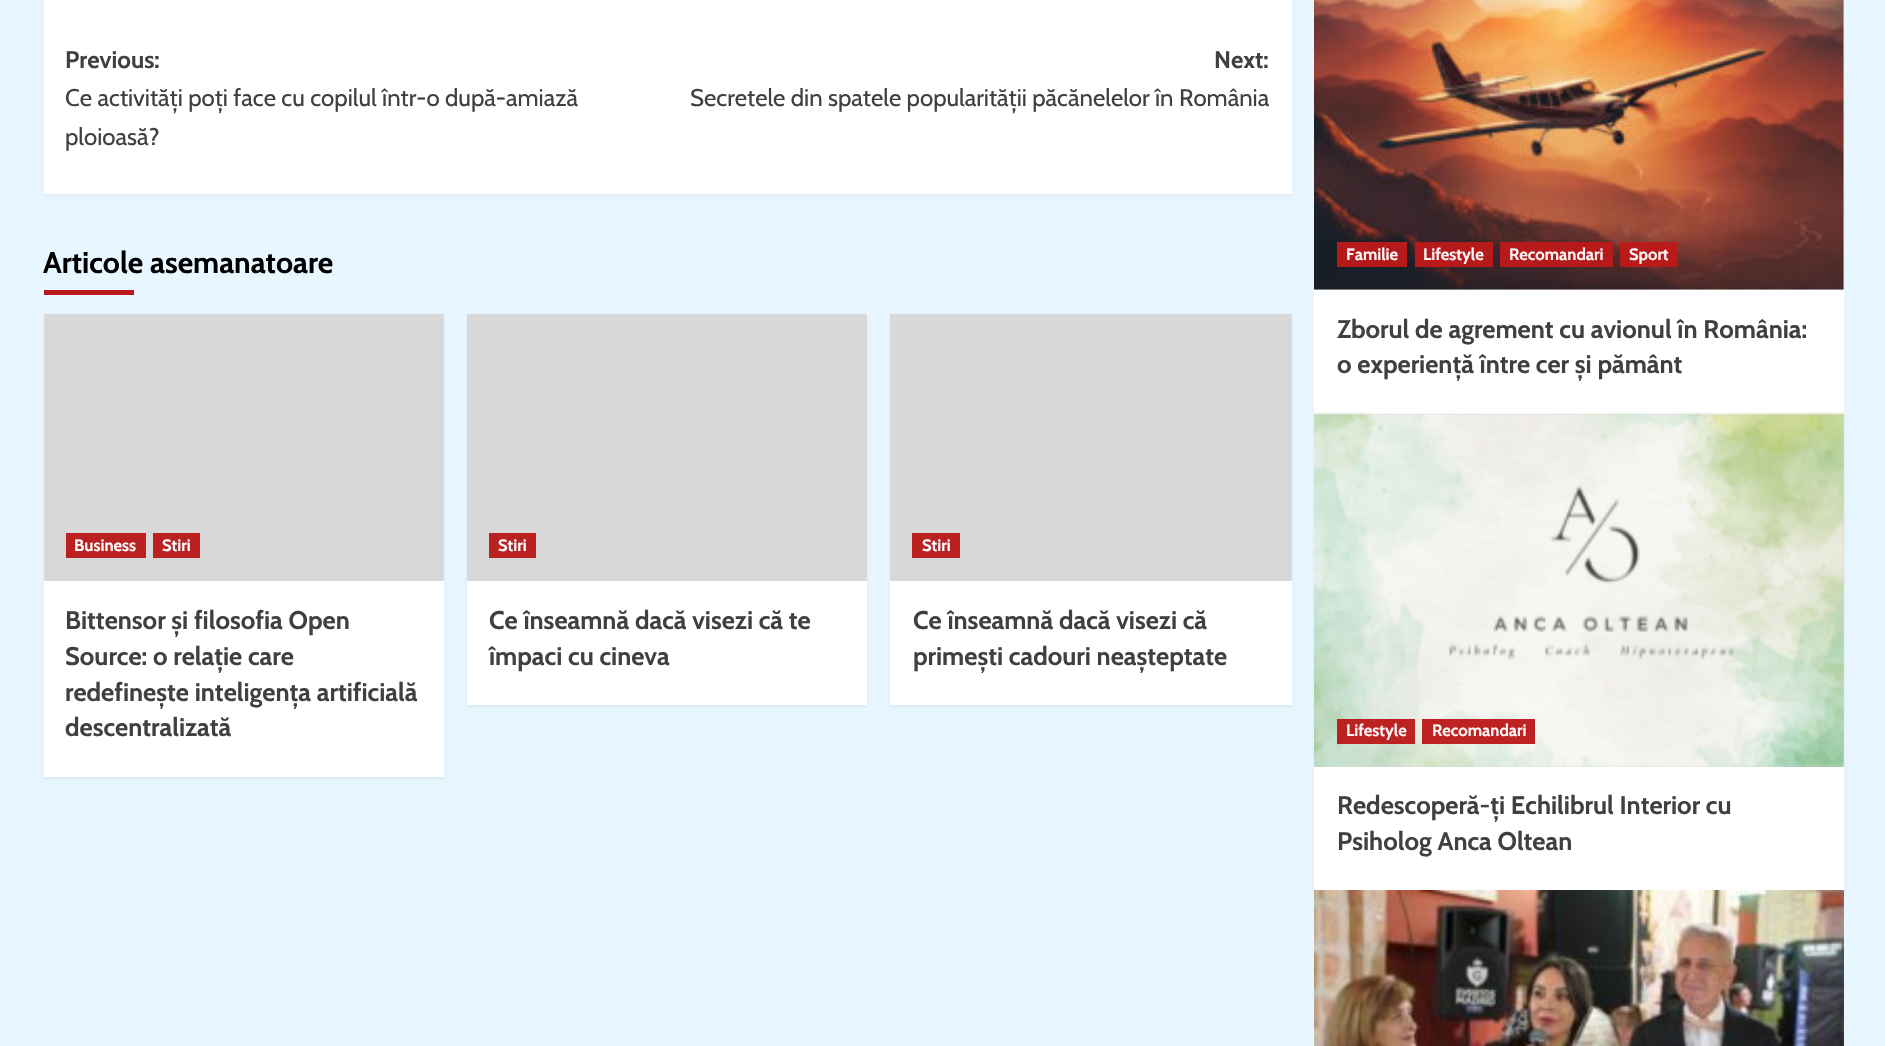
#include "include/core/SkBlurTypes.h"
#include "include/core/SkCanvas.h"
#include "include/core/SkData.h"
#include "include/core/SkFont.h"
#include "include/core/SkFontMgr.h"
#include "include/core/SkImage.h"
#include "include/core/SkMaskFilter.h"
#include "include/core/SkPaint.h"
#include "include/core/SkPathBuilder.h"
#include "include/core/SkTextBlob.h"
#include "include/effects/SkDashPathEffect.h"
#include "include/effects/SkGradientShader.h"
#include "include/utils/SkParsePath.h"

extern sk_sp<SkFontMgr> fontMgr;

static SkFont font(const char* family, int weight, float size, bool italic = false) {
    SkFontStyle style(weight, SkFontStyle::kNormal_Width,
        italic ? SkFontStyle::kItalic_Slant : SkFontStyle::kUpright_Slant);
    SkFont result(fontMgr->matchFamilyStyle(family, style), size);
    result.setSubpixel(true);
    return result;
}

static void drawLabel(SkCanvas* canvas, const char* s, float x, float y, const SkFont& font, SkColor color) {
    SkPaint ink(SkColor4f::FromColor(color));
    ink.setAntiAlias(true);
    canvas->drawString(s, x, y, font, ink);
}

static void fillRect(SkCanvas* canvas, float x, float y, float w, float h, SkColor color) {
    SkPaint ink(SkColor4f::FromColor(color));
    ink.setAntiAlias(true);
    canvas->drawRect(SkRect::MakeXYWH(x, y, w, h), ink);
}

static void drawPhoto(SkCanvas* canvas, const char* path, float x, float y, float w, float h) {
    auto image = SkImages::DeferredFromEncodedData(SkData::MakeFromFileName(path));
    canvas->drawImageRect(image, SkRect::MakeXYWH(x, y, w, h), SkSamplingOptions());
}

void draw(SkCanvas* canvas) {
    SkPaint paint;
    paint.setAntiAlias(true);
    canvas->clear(0xFFE8F6FF);
    paint.setColor(0x0D000000);
    paint.setMaskFilter(SkMaskFilter::MakeBlur(kNormal_SkBlurStyle, 1.5f));
    canvas->drawRect(SkRect::MakeXYWH(44, -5, 1248, 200), paint);
    paint.setMaskFilter(nullptr);
    fillRect(canvas, 44, 0, 1248, 194, 0xFFFFFFFF);
    SkFont font1 = font("Cabin", 700, 24);
    drawLabel(canvas, "Previous:", 65, 68, font1, 0xFF404040);
    SkFont font2 = font("Cabin", 400, 24);
    drawLabel(canvas, "Ce activități poți face cu copilul într-o după-amiază", 65, 106, font2, 0xFF404040);
    drawLabel(canvas, "ploioasă?", 65, 145, font2, 0xFF404040);
    drawLabel(canvas, "Next:", 1214, 68, font1, 0xFF404040);
    drawLabel(canvas, "Secretele din spatele popularității păcănelelor în România", 690, 106, font2, 0xFF404040);
    SkFont font3 = font("Cabin", 700, 30);
    drawLabel(canvas, "Articole asemanatoare", 43, 273, font3, 0xFF000000);
    fillRect(canvas, 44, 290, 90, 5, 0xFFBB1919);
    paint.setMaskFilter(SkMaskFilter::MakeBlur(kNormal_SkBlurStyle, 1.5f));
    canvas->drawRect(SkRect::MakeXYWH(44, 315, 400, 464), paint);
    paint.setMaskFilter(nullptr);
    fillRect(canvas, 44, 581, 400, 196, 0xFFFFFFFF);
    fillRect(canvas, 44, 314, 400, 267, 0xFFD8D8D8);
    fillRect(canvas, 66, 533, 80, 25, 0xFFBC2121);
    SkFont font4 = font("Cabin", 700, 16.5f);
    drawLabel(canvas, "Business", 74, 551, font4, 0xFFFDFDFD);
    fillRect(canvas, 153, 533, 47, 25, 0xFFBC2121);
    drawLabel(canvas, "Stiri", 162, 551, font4, 0xFFFDFDFD);
    SkFont font5 = font("Cabin", 700, 25.5f);
    drawLabel(canvas, "Bittensor și filosofia Open", 65, 629, font5, 0xFF404040);
    drawLabel(canvas, "Source: o relație care", 65, 665, font5, 0xFF404040);
    drawLabel(canvas, "redefinește inteligența artificială", 65, 701, font5, 0xFF404040);
    drawLabel(canvas, "descentralizată", 65, 736, font5, 0xFF404040);
    paint.setMaskFilter(SkMaskFilter::MakeBlur(kNormal_SkBlurStyle, 1.5f));
    canvas->drawRect(SkRect::MakeXYWH(467, 315, 400, 392), paint);
    paint.setMaskFilter(nullptr);
    fillRect(canvas, 467, 581, 400, 124, 0xFFFFFFFF);
    fillRect(canvas, 467, 314, 400, 267, 0xFFD8D8D8);
    fillRect(canvas, 489, 533, 47, 25, 0xFFBC2121);
    drawLabel(canvas, "Stiri", 498, 551, font4, 0xFFFDFDFD);
    drawLabel(canvas, "Ce înseamnă dacă visezi că te", 489, 629, font5, 0xFF404040);
    drawLabel(canvas, "împaci cu cineva", 489, 665, font5, 0xFF404040);
    paint.setMaskFilter(SkMaskFilter::MakeBlur(kNormal_SkBlurStyle, 1.5f));
    canvas->drawRect(SkRect::MakeXYWH(890, 315, 402, 392), paint);
    paint.setMaskFilter(nullptr);
    fillRect(canvas, 890, 581, 402, 124, 0xFFFFFFFF);
    fillRect(canvas, 890, 314, 402, 267, 0xFFD8D8D8);
    fillRect(canvas, 912, 533, 48, 25, 0xFFBC2121);
    drawLabel(canvas, "Stiri", 922, 551, font4, 0xFFFDFDFD);
    drawLabel(canvas, "Ce înseamnă dacă visezi că", 913, 629, font5, 0xFF404040);
    drawLabel(canvas, "primești cadouri neașteptate", 913, 665, font5, 0xFF404040);
    fillRect(canvas, 1314, 290, 530, 124, 0xFFFFFFFF);
    fillRect(canvas, 1314, 0, 530, 290, 0xFFD8D8D8);
    drawPhoto(canvas, "assets/img1.png", 1314, 0, 530, 290);
    fillRect(canvas, 1337, 242, 70, 25, 0xF5BB1919);
    drawLabel(canvas, "Familie", 1346, 260, font4, 0xFFFCF6F6);
    fillRect(canvas, 1415, 242, 78, 25, 0xF5BB1919);
    drawLabel(canvas, "Lifestyle", 1423, 260, font4, 0xFFFCF6F6);
    fillRect(canvas, 1500, 242, 113, 25, 0xF5BB1919);
    drawLabel(canvas, "Recomandari", 1509, 260, font4, 0xFFFCF6F6);
    fillRect(canvas, 1620, 242, 57, 25, 0xF5BB1919);
    drawLabel(canvas, "Sport", 1629, 260, font4, 0xFFFCF6F6);
    drawLabel(canvas, "Zborul de agrement cu avionul în România:", 1337, 338, font5, 0xFF404040);
    drawLabel(canvas, "o experiență între cer și pământ", 1337, 373, font5, 0xFF404040);
    paint.setMaskFilter(SkMaskFilter::MakeBlur(kNormal_SkBlurStyle, 1.5f));
    canvas->drawRect(SkRect::MakeXYWH(1314, 416, 530, 475), paint);
    paint.setMaskFilter(nullptr);
    fillRect(canvas, 1314, 767, 530, 123, 0xFFFFFFFF);
    fillRect(canvas, 1314, 414, 530, 353, 0xFFD8D8D8);
    drawPhoto(canvas, "assets/img2.png", 1314, 412, 530, 355);
    fillRect(canvas, 1337, 719, 78, 25, 0xF5BB1919);
    drawLabel(canvas, "Lifestyle", 1346, 736, font4, 0xFFFCF6F6);
    fillRect(canvas, 1422, 719, 113, 25, 0xF5BB1919);
    drawLabel(canvas, "Recomandari", 1432, 736, font4, 0xFFFCF6F6);
    drawLabel(canvas, "Redescoperă-ți Echilibrul Interior cu", 1337, 814, font5, 0xFF404040);
    drawLabel(canvas, "Psiholog Anca Oltean", 1337, 850, font5, 0xFF404040);
    drawPhoto(canvas, "assets/img3.png", 1314, 890, 530, 156);
}
